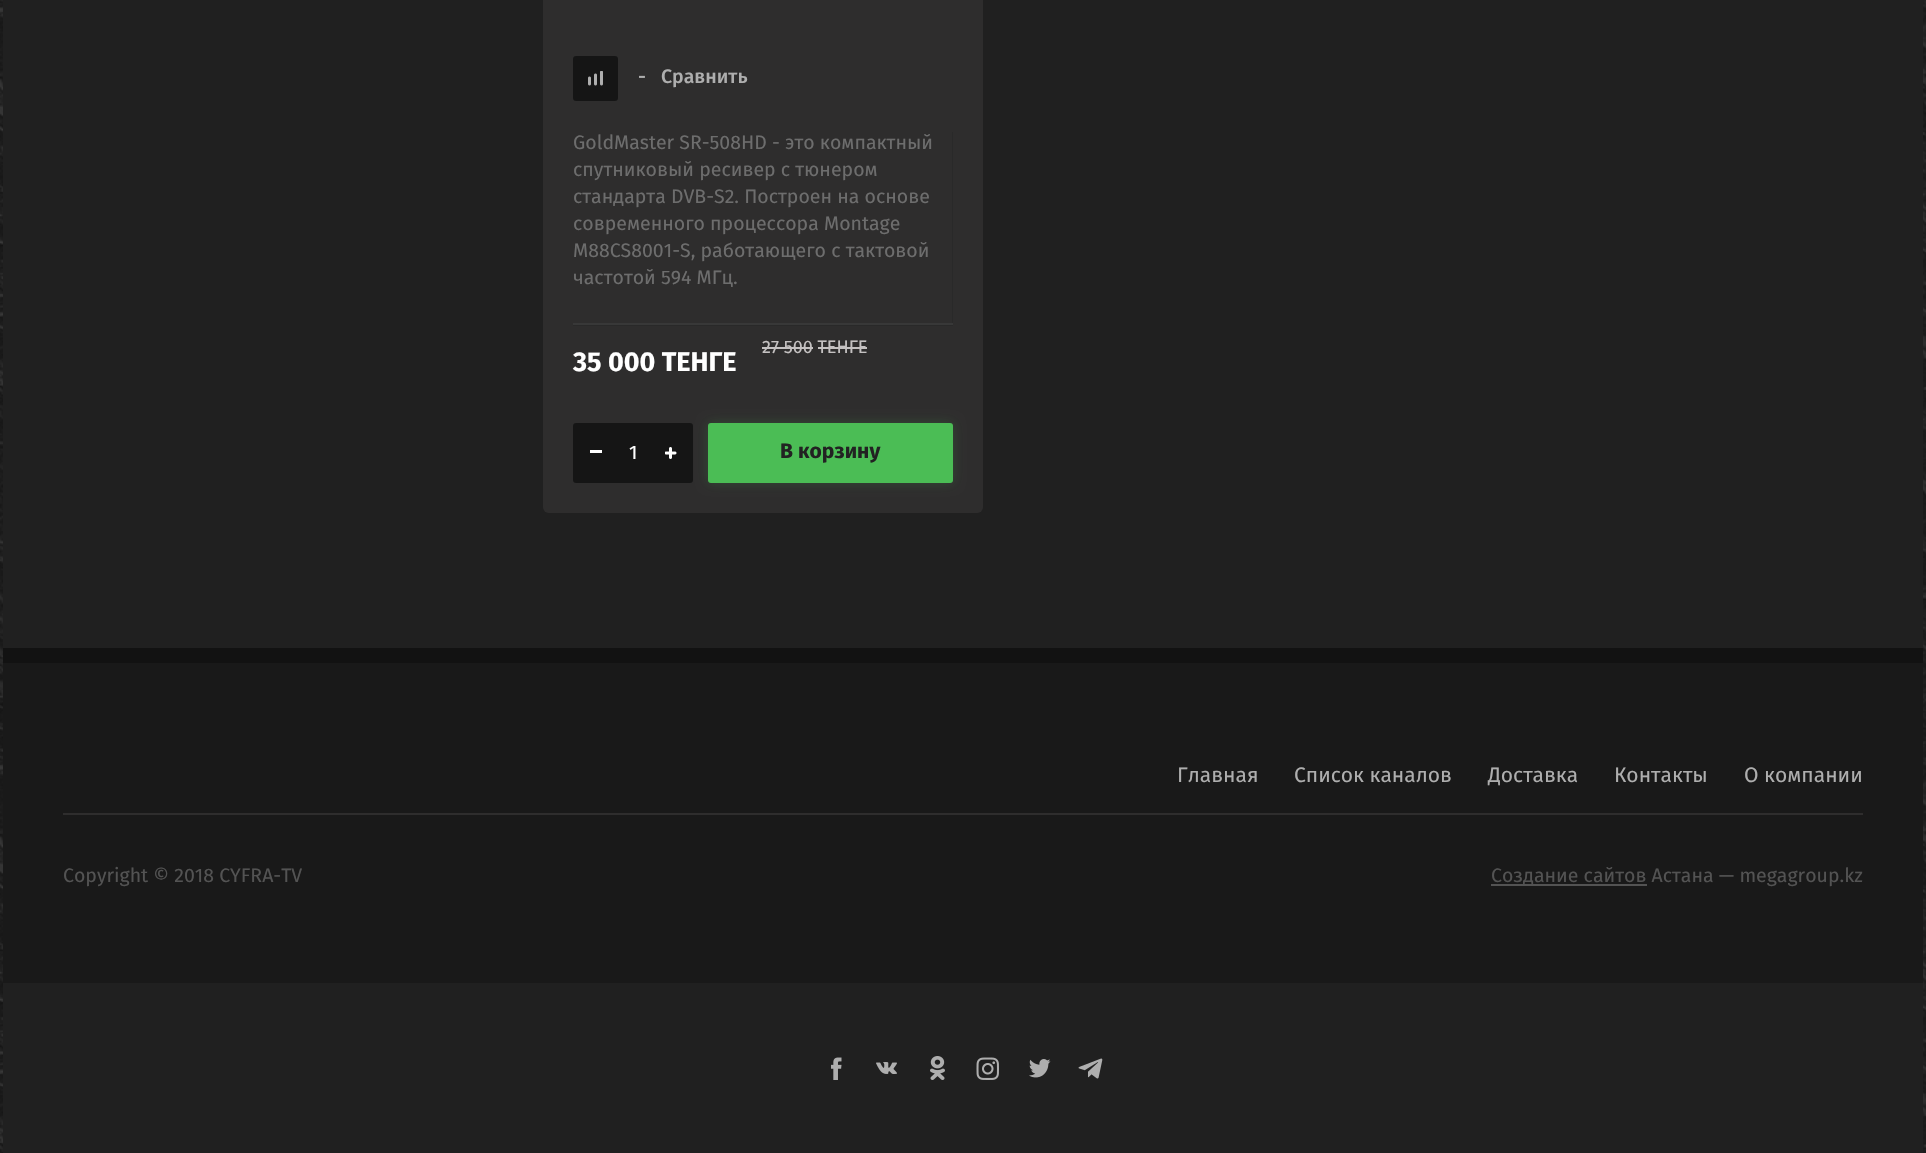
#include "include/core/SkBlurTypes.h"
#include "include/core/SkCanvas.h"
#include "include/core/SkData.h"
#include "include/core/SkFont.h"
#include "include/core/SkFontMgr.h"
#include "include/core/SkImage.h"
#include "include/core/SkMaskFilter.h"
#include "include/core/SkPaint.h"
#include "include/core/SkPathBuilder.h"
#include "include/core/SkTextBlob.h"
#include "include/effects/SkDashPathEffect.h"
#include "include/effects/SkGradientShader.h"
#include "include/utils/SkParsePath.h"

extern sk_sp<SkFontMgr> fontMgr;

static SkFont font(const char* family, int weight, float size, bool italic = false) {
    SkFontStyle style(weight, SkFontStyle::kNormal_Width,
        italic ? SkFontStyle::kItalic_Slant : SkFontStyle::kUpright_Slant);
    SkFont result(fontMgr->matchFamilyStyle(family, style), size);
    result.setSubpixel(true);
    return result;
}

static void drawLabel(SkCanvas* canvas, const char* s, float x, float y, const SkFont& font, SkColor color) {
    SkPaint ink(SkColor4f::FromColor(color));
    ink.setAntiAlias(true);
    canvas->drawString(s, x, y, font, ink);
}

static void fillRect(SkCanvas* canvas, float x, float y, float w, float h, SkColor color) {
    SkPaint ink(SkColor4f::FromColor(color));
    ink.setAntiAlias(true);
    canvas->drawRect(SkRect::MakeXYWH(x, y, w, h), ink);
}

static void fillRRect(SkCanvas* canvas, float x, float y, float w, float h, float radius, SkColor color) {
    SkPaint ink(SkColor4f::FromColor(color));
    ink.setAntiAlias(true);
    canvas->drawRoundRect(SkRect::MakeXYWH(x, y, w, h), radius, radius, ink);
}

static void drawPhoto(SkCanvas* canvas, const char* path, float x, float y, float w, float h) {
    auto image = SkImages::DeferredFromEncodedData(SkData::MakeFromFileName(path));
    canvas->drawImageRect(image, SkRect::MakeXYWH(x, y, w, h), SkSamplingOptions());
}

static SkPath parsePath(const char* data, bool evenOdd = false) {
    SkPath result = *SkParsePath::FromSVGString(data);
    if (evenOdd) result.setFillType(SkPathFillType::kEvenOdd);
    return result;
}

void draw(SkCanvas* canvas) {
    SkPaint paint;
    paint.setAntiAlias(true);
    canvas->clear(0xFFFFFFFF);
    drawPhoto(canvas, "assets/img1.png", 0, 0, 1926, 1153);
    fillRect(canvas, 3, 0, 1920, 648, 0xFF202020);
    fillRRect(canvas, 543, -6, 440, 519, 6, 0xFF2E2D2D);
    fillRRect(canvas, 573, 56, 45, 45, 3, 0xFF151515);
    drawPhoto(canvas, "assets/img2.png", 588, 71, 15, 15);
    SkFont font1 = font("Fira Sans", 500, 19.5f);
    drawLabel(canvas, "-", 638, 83, font1, 0xFFAEAEAE);
    drawLabel(canvas, "Сравнить", 661, 83, font1, 0xFFAEAEAE);
    paint.setColor(0xFF292929);
    canvas->drawPath(parsePath("M573 324V326H953V132H952V324Z"), paint);
    fillRect(canvas, 573, 323, 380, 2, 0xFF383838);
    SkFont font2 = font("Fira Sans", 400, 19.5f);
    drawLabel(canvas, "GoldMaster SR-508HD - это компактный", 573, 149, font2, 0xFF6D6D6D);
    drawLabel(canvas, "спутниковый ресивер с тюнером", 573, 176, font2, 0xFF6D6D6D);
    drawLabel(canvas, "стандарта DVB-S2. Построен на основе", 573, 203, font2, 0xFF6D6D6D);
    drawLabel(canvas, "современного процессора Montage", 573, 230, font2, 0xFF6D6D6D);
    drawLabel(canvas, "M88CS8001-S, работающего с тактовой", 573, 257, font2, 0xFF6D6D6D);
    drawLabel(canvas, "частотой 594 МГц.", 573, 284, font2, 0xFF6D6D6D);
    SkFont font3 = font("Fira Sans", 400, 18);
    drawLabel(canvas, "27 500 ТЕНГЕ", 762, 353, font3, 0xFFC4C1C1);
    fillRect(canvas, 762, 347, 51, 2, 0xFFC4C1C1);
    fillRect(canvas, 818, 347, 49, 2, 0xFFC4C1C1);
    SkFont font4 = font("Fira Sans", 700, 27);
    drawLabel(canvas, "35 000 ТЕНГЕ", 573, 371, font4, 0xFFFFFFFF);
    fillRRect(canvas, 573, 423, 120, 60, 3, 0xFF151515);
    fillRect(canvas, 590, 450, 12, 3, 0xFFFFFFFF);
    drawLabel(canvas, "1", 629, 459, font2, 0xFFFFFFFF);
    drawPhoto(canvas, "assets/img3.png", 665, 447, 12, 12);
    paint.setColor(0x334BBD55);
    paint.setMaskFilter(SkMaskFilter::MakeBlur(kNormal_SkBlurStyle, 6));
    canvas->drawRoundRect(SkRect::MakeXYWH(708, 423, 245, 60), 3, 3, paint);
    paint.setMaskFilter(nullptr);
    fillRRect(canvas, 708, 423, 245, 60, 3, 0xFF4BBD55);
    SkFont font5 = font("Fira Sans", 700, 21);
    drawLabel(canvas, "В корзину", 780, 458, font5, 0xFF222222);
    fillRect(canvas, 3, 983, 1920, 170, 0xFF202020);
    fillRect(canvas, 3, 663, 1920, 320, 0xFF191919);
    fillRect(canvas, 3, 648, 1920, 15, 0xFF121212);
    fillRect(canvas, 63, 813, 1800, 2, 0xFF2E2D2D);
    SkFont font6 = font("Fira Sans", 400, 21);
    drawLabel(canvas, "Главная", 1177, 782, font6, 0xFFAEAEAE);
    drawLabel(canvas, "Список каналов", 1294, 782, font6, 0xFFAEAEAE);
    drawLabel(canvas, "Доставка", 1488, 782, font6, 0xFFAEAEAE);
    drawLabel(canvas, "Контакты", 1614, 782, font6, 0xFFAEAEAE);
    drawLabel(canvas, "О компании", 1744, 782, font6, 0xFFAEAEAE);
    drawLabel(canvas, "Copyright © 2018 CYFRA-TV", 63, 882, font2, 0xFF535353);
    fillRect(canvas, 1491, 884, 156, 2, 0xFF535353);
    drawLabel(canvas, "Создание сайтов Астана — megagroup.kz", 1491, 882, font2, 0xFF535353);
    drawPhoto(canvas, "assets/img4.png", 831, 1057, 11, 23);
    drawPhoto(canvas, "assets/img5.png", 876, 1062, 21, 12);
    drawPhoto(canvas, "assets/img6.png", 930, 1056, 15, 24);
    drawPhoto(canvas, "assets/img7.png", 976, 1057, 23, 23);
    drawPhoto(canvas, "assets/img8.png", 1029, 1059, 22, 19);
    drawPhoto(canvas, "assets/img9.png", 1078, 1058, 25, 21);
}
